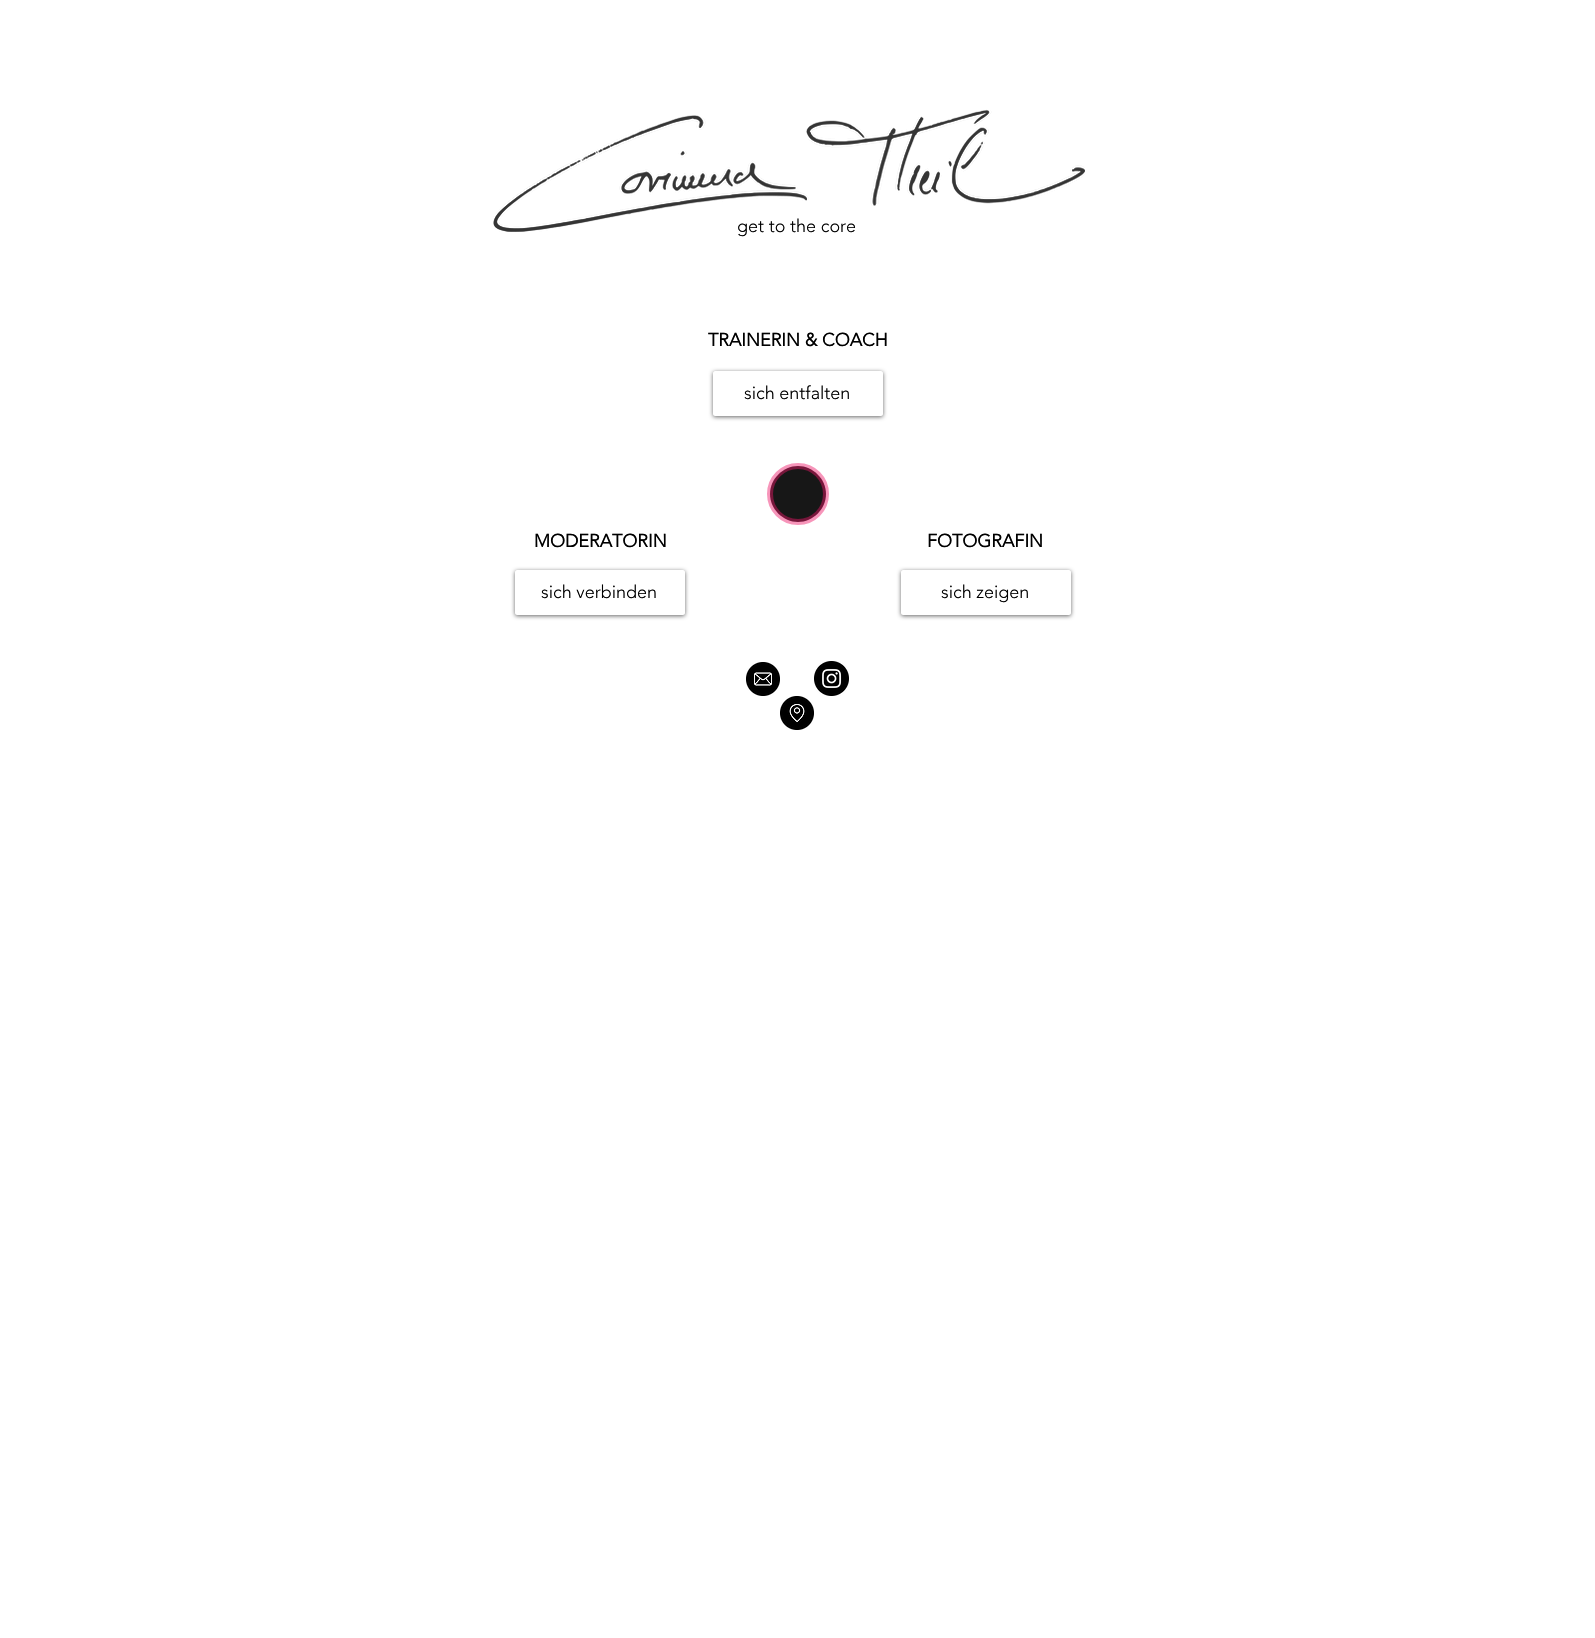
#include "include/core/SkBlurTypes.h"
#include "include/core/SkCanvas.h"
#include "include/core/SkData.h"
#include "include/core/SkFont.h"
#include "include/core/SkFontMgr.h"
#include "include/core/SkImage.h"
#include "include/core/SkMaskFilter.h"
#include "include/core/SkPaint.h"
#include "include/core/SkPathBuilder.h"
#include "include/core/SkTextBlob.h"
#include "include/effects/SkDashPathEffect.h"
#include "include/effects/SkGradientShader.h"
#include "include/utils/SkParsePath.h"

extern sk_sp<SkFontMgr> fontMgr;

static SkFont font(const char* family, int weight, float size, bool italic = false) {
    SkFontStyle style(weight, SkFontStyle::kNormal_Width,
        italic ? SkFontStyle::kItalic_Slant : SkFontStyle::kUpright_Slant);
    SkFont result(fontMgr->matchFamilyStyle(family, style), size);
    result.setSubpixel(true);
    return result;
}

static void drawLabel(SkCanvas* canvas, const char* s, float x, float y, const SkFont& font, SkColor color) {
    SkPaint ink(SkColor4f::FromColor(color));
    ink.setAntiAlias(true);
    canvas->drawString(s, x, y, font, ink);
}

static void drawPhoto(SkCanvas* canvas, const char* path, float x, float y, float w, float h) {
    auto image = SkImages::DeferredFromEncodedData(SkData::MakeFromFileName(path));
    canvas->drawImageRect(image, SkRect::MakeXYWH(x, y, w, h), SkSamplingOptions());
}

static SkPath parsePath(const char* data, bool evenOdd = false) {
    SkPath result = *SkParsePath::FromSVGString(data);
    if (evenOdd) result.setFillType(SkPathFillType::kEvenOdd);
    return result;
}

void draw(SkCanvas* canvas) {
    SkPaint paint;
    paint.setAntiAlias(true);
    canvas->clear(0xFFFFFFFF);
    drawPhoto(canvas, "assets/img1.png", 493, 109, 592, 123);
    SkFont font1 = font("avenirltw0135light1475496", 300, 18);
    drawLabel(canvas, "get to the core", 737, 232, font1, 0xFF000000);
    SkFont font2 = font("avenirltw0135light1475496", 700, 18);
    drawLabel(canvas, "TRAINERIN & COACH", 708, 346, font2, 0xFF000000);
    canvas->save();
    canvas->clipPath(parsePath("M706 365H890V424H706ZM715 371H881C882 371 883 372 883 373V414C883 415 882 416 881 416H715C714 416 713 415 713 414V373C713 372 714 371 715 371Z", true), true);
    paint.setColor(0x99000000);
    paint.setMaskFilter(SkMaskFilter::MakeBlur(kNormal_SkBlurStyle, 2));
    canvas->drawRoundRect(SkRect::MakeXYWH(713, 372, 170, 45), 2, 2, paint);
    paint.setMaskFilter(nullptr);
    canvas->restore();
    drawLabel(canvas, "sich entfalten", 744, 399, font1, 0xFF000000);
    paint.setColor(0xFF171717);
    canvas->drawPath(parsePath("M826 494C826 509 813 522 798 522C783 522 770 509 770 494C770 479 783 466 798 466C813 466 826 479 826 494Z"), paint);
    paint.setStroke(true);
    paint.setStrokeWidth(6);
    paint.setColor(0x73ED1566);
    canvas->drawPath(parsePath("M826 494C826 509.5 813.5 522 798 522C782.5 522 770 509.5 770 494C770 478.5 782.5 466 798 466C813.5 466 826 478.5 826 494Z"), paint);
    drawLabel(canvas, "MODERATORIN", 534, 547, font2, 0xFF000000);
    drawLabel(canvas, "FOTOGRAFIN", 927, 547, font2, 0xFF000000);
    canvas->save();
    canvas->clipPath(parsePath("M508 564H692V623H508ZM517 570H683C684 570 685 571 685 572V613C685 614 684 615 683 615H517C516 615 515 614 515 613V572C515 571 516 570 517 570Z", true), true);
    paint.setStroke(false);
    paint.setColor(0x99000000);
    paint.setMaskFilter(SkMaskFilter::MakeBlur(kNormal_SkBlurStyle, 2));
    canvas->drawRoundRect(SkRect::MakeXYWH(515, 571, 170, 45), 2, 2, paint);
    paint.setMaskFilter(nullptr);
    canvas->restore();
    drawLabel(canvas, "sich verbinden", 541, 598, font1, 0xFF000000);
    canvas->save();
    canvas->clipPath(parsePath("M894 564H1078V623H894ZM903 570H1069C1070 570 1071 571 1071 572V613C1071 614 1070 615 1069 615H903C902 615 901 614 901 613V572C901 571 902 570 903 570Z", true), true);
    paint.setMaskFilter(SkMaskFilter::MakeBlur(kNormal_SkBlurStyle, 2));
    canvas->drawRoundRect(SkRect::MakeXYWH(901, 571, 170, 45), 2, 2, paint);
    paint.setMaskFilter(nullptr);
    canvas->restore();
    drawLabel(canvas, "sich zeigen", 941, 598, font1, 0xFF000000);
    drawPhoto(canvas, "assets/img2.png", 746, 662, 34, 34);
    drawPhoto(canvas, "assets/img3.png", 814, 661, 35, 35);
    drawPhoto(canvas, "assets/img4.png", 780, 696, 34, 34);
}
